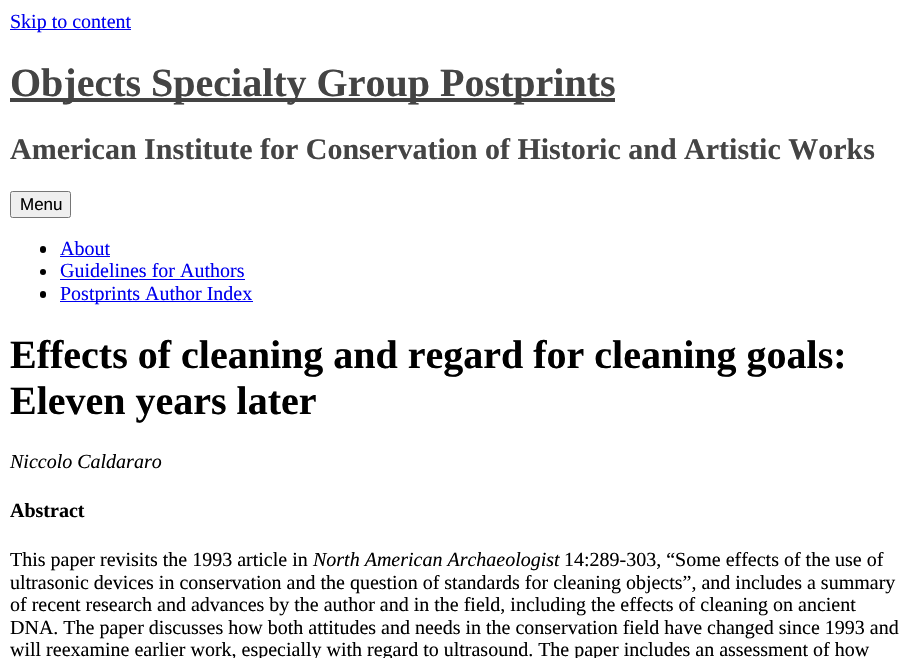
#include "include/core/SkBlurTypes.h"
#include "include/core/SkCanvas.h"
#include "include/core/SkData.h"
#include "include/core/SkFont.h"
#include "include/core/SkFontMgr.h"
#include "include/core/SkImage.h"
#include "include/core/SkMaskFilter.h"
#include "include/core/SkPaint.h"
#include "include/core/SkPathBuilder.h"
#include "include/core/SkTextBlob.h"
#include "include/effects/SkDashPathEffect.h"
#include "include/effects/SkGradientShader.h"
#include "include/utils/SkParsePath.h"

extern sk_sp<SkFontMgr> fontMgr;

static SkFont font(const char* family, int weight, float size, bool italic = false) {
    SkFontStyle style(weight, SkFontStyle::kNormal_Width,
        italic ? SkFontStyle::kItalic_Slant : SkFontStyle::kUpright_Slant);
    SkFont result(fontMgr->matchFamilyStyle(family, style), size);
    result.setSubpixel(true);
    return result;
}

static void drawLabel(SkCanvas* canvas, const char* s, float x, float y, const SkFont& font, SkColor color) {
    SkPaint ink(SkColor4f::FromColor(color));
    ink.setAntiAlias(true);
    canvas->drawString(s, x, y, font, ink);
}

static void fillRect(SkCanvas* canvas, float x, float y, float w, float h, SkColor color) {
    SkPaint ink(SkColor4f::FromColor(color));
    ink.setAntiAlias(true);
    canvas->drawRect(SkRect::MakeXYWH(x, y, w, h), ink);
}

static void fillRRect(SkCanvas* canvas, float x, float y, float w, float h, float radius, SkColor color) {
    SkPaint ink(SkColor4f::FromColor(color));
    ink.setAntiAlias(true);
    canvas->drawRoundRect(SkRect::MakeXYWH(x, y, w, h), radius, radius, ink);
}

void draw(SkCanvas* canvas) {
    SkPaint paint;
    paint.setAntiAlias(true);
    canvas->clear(0xFFFFFFFF);
    fillRect(canvas, 10, 29, 121, 1, 0xFF0000EE);
    SkFont font1 = font("Liberation Serif", 400, 20);
    drawLabel(canvas, "Skip to content", 10, 28, font1, 0xFF0000EE);
    fillRect(canvas, 10, 98, 605, 4, 0xFF444444);
    SkFont font2 = font("Liberation Serif", 700, 40);
    drawLabel(canvas, "Objects Specialty Group Postprints", 10, 96, font2, 0xFF444444);
    SkFont font3 = font("Liberation Serif", 700, 30);
    drawLabel(canvas, "American Institute for Conservation of Historic and Artistic Works", 10, 159, font3, 0xFF444444);
    paint.setColor(0xFFEFEFEF);
    canvas->drawRoundRect(SkRect::MakeXYWH(10.5f, 191.5f, 60, 26), 2, 2, paint);
    paint.setStroke(true);
    paint.setStrokeWidth(1);
    paint.setColor(0xFF767676);
    canvas->drawRoundRect(SkRect::MakeXYWH(10.5f, 191.5f, 60, 26), 2, 2, paint);
    SkFont font4 = font("Liberation Sans", 400, 17);
    drawLabel(canvas, "Menu", 20, 210, font4, 0xFF000000);
    fillRRect(canvas, 40, 246, 6, 7, 3, 0xFF000000);
    drawLabel(canvas, "About", 60, 255, font1, 0xFF0000EE);
    fillRect(canvas, 60, 256, 50, 1, 0xFF0000EE);
    paint.setStroke(false);
    paint.setColor(0xFF000000);
    canvas->drawCircle(43, 272, 3, paint);
    drawLabel(canvas, "Guidelines for Authors", 60, 277, font1, 0xFF0000EE);
    fillRect(canvas, 60, 279, 185, 1, 0xFF0000EE);
    fillRRect(canvas, 40, 291, 6, 7, 3, 0xFF000000);
    fillRect(canvas, 60, 301, 193, 1, 0xFF0000EE);
    drawLabel(canvas, "Postprints Author Index", 60, 300, font1, 0xFF0000EE);
    drawLabel(canvas, "Effects of cleaning and regard for cleaning goals:", 10, 368, font2, 0xFF000000);
    drawLabel(canvas, "Eleven years later", 10, 414, font2, 0xFF000000);
    SkFont font5 = font("Liberation Serif", 400, 20, true);
    drawLabel(canvas, "Niccolo Caldararo", 10, 468, font5, 0xFF000000);
    SkFont font6 = font("Liberation Serif", 700, 20);
    drawLabel(canvas, "Abstract", 10, 517, font6, 0xFF000000);
    drawLabel(canvas, "This paper revisits the 1993 article in", 10, 566, font1, 0xFF000000);
    drawLabel(canvas, "North American Archaeologist", 313, 566, font5, 0xFF000000);
    drawLabel(canvas, "14:289-303, “Some effects of the use of", 564, 566, font1, 0xFF000000);
    drawLabel(canvas, "ultrasonic devices in conservation and the question of standards for cleaning objects”, and includes a summary", 10, 589, font1, 0xFF000000);
    drawLabel(canvas, "of recent research and advances by the author and in the field, including the effects of cleaning on ancient", 10, 611, font1, 0xFF000000);
    drawLabel(canvas, "DNA. The paper discusses how both attitudes and needs in the conservation field have changed since 1993 and", 10, 634, font1, 0xFF000000);
    drawLabel(canvas, "will reexamine earlier work, especially with regard to ultrasound. The paper includes an assessment of how", 10, 656, font1, 0xFF000000);
}
